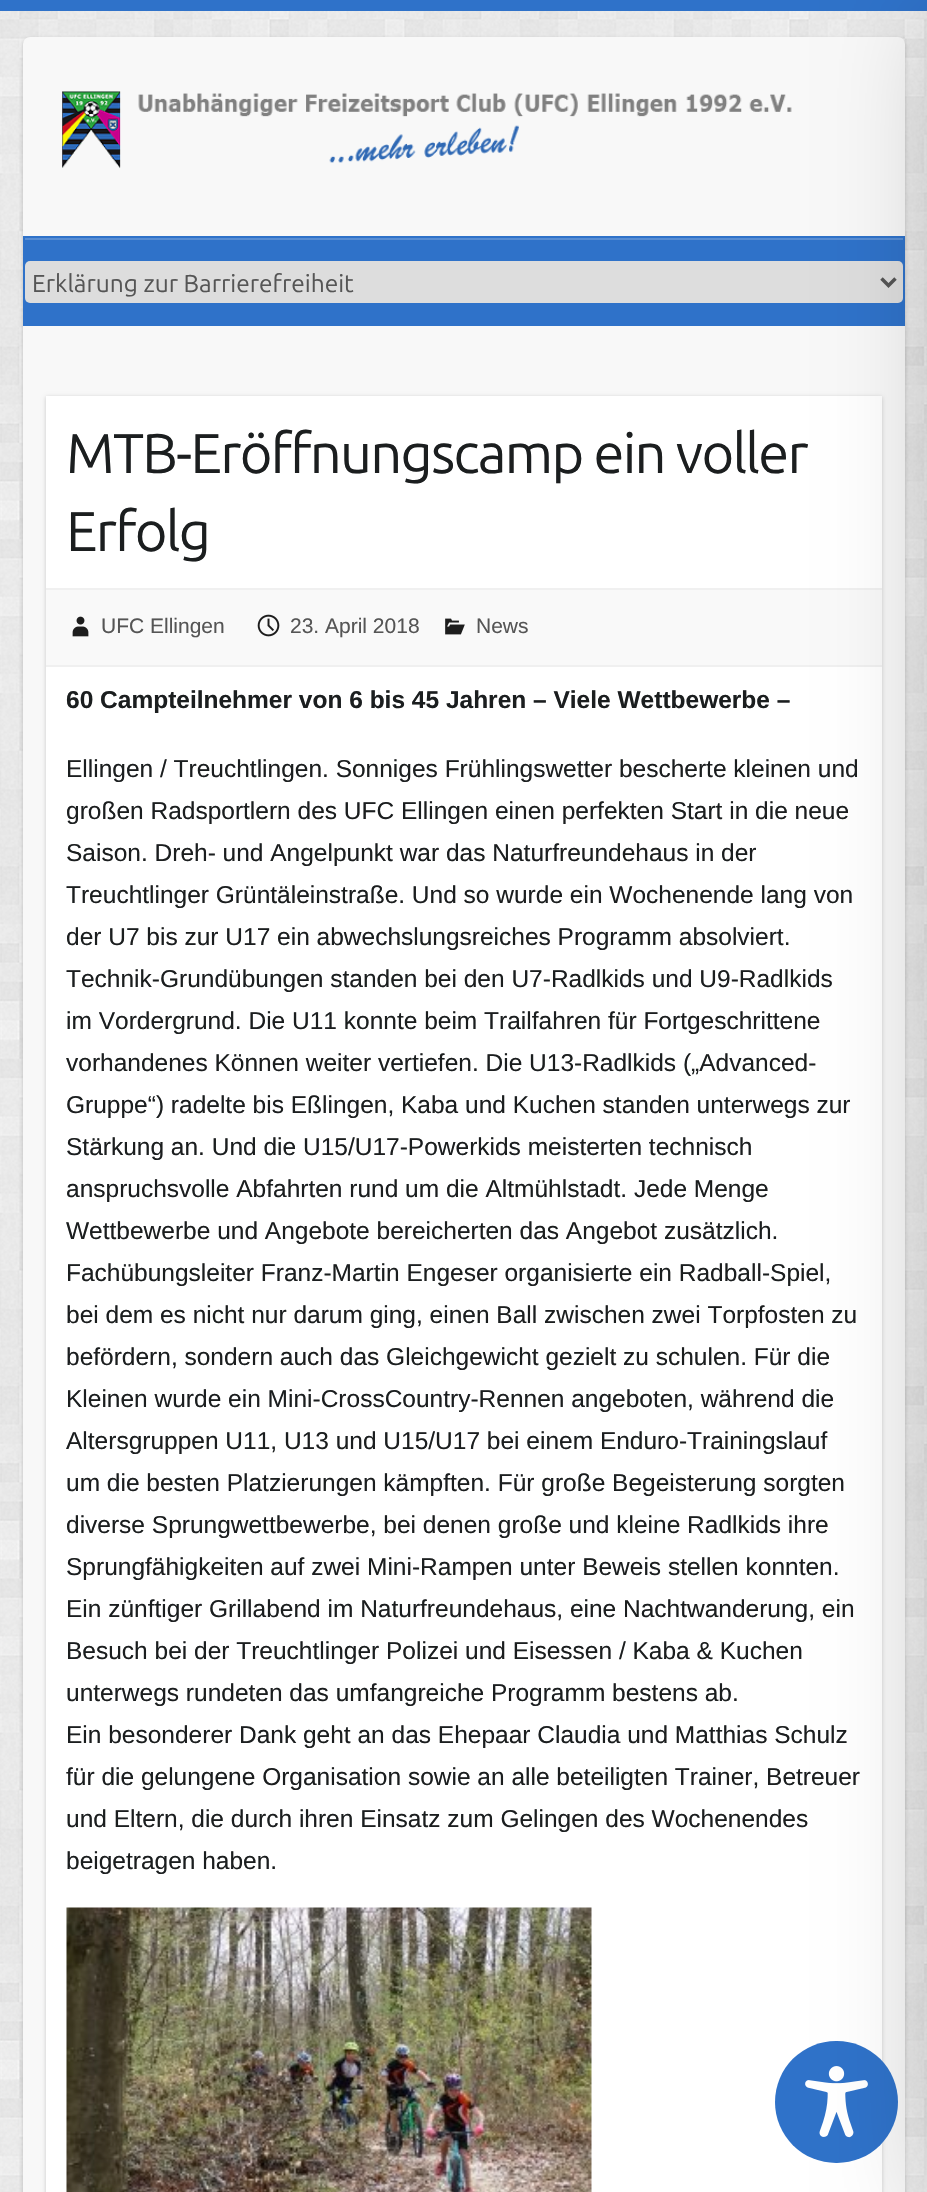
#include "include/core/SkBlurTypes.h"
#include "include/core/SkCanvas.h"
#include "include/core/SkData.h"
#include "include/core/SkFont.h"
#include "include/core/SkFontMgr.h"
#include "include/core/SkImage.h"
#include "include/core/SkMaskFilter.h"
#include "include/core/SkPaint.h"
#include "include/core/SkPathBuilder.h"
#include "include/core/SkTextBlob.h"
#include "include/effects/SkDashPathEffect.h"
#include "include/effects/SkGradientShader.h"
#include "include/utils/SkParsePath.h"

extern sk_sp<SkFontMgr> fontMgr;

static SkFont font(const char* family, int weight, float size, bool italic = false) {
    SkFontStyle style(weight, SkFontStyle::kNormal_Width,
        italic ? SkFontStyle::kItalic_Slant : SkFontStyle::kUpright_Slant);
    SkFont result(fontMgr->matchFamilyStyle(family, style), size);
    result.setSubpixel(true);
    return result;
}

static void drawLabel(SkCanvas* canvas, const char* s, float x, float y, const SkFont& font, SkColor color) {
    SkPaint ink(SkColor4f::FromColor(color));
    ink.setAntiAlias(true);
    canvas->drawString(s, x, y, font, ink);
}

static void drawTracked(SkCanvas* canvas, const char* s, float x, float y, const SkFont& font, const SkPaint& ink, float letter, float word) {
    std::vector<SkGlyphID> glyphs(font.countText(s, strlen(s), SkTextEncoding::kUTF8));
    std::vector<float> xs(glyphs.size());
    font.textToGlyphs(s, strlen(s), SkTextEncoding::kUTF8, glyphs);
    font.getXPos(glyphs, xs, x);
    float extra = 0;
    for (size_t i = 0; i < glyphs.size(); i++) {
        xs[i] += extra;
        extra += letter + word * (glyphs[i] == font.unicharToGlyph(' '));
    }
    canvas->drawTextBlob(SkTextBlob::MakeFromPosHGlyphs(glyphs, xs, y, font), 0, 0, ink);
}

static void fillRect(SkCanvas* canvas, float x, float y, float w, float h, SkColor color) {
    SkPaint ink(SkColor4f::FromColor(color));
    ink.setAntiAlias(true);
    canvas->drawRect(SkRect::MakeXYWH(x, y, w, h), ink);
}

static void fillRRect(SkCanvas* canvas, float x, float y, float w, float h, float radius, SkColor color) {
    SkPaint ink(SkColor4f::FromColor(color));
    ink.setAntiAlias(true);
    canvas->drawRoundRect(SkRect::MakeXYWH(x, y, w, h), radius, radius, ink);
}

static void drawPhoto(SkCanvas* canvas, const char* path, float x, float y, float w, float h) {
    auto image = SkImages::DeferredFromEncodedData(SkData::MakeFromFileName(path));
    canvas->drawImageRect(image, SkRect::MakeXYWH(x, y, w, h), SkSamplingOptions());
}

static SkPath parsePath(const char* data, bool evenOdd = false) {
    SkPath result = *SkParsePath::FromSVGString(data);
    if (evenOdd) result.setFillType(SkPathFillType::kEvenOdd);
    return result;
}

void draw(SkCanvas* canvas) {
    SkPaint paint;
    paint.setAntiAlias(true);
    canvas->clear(0xFFFFFFFF);
    drawPhoto(canvas, "assets/img1.png", 0, 11, 927, 2181);
    fillRect(canvas, 0, 0, 927, 11, 0xFF2F72C9);
    paint.setColor(0x33000000);
    paint.setMaskFilter(SkMaskFilter::MakeBlur(kNormal_SkBlurStyle, 2));
    canvas->drawRoundRect(SkRect::MakeXYWH(23, 39, 882, 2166), 7, 7, paint);
    paint.setMaskFilter(nullptr);
    fillRRect(canvas, 23, 37, 882, 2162, 7, 0xFFF8F8F8);
    drawPhoto(canvas, "assets/img2.png", 62, 91, 730, 78);
    fillRect(canvas, 23, 236, 882, 90, 0xFF2F72C9);
    fillRect(canvas, 25, 238, 878, 2, 0xFF598ED4);
    fillRRect(canvas, 25, 261, 878, 42, 5, 0xFFDDDDDD);
    paint.setStroke(true);
    paint.setStrokeWidth(3.5f);
    paint.setColor(0xFF555555);
    canvas->drawPath(parsePath("M881.5 278.5L888.5 285.5L895.5 278.5"), paint);
    paint.setStroke(false);
    paint.setColor(0x33000000);
    paint.setMaskFilter(SkMaskFilter::MakeBlur(kNormal_SkBlurStyle, 2));
    canvas->drawRect(SkRect::MakeXYWH(46, 397, 836, 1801), paint);
    paint.setMaskFilter(nullptr);
    fillRect(canvas, 46, 396, 836, 1796, 0xFFFFFFFF);
    fillRect(canvas, 46, 590, 836, 75, 0xFFF9F9F9);
    fillRect(canvas, 46, 588, 836, 2, 0xFFF0F0F0);
    fillRect(canvas, 46, 665, 836, 2, 0xFFF0F0F0);
    fillRRect(canvas, 775, 2041, 123, 122, 61, 0xFF2F72C9);
    drawPhoto(canvas, "assets/img7.png", 805, 2066, 63, 72);
    paint.setMaskFilter(SkMaskFilter::MakeBlur(kNormal_SkBlurStyle, 52.5f));
    canvas->drawRect(SkRect::MakeXYWH(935, 18, 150, 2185), paint);
    paint.setMaskFilter(nullptr);
    SkFont font1 = font("Ubuntu", 400, 24.5f);
    drawLabel(canvas, "Erklärung zur Barrierefreiheit", 32, 292, font1, 0xFF555555);
    SkFont font2 = font("Ubuntu", 400, 56);
    paint.setColor(0xFF1B1E1F);
    drawTracked(canvas, "MTB-Eröffnungscamp ein voller", 66, 473, font2, paint, -1.75f, 0);
    drawTracked(canvas, "Erfolg", 66, 551, font2, paint, -1.75f, 0);
    drawPhoto(canvas, "assets/img3.png", 72, 616, 17, 21);
    SkFont font3 = font("Liberation Sans", 400, 21);
    drawLabel(canvas, "UFC Ellingen", 101, 633, font3, 0xFF555555);
    drawPhoto(canvas, "assets/img4.png", 257, 614, 23, 23);
    drawLabel(canvas, "23. April 2018", 290, 633, font3, 0xFF555555);
    drawPhoto(canvas, "assets/img5.png", 445, 618, 20, 17);
    drawLabel(canvas, "News", 476, 633, font3, 0xFF555555);
    SkFont font4 = font("Liberation Sans", 700, 24.5f);
    drawLabel(canvas, "60 Campteilnehmer von 6 bis 45 Jahren – Viele Wettbewerbe –", 66, 708, font4, 0xFF1B1E1F);
    SkFont font5 = font("Liberation Sans", 400, 24.5f);
    drawLabel(canvas, "Ellingen / Treuchtlingen. Sonniges Frühlingswetter bescherte kleinen und", 66, 777, font5, 0xFF1B1E1F);
    drawLabel(canvas, "großen Radsportlern des UFC Ellingen einen perfekten Start in die neue", 66, 819, font5, 0xFF1B1E1F);
    drawLabel(canvas, "Saison. Dreh- und Angelpunkt war das Naturfreundehaus in der", 66, 861, font5, 0xFF1B1E1F);
    drawLabel(canvas, "Treuchtlinger Grüntäleinstraße. Und so wurde ein Wochenende lang von", 66, 903, font5, 0xFF1B1E1F);
    drawLabel(canvas, "der U7 bis zur U17 ein abwechslungsreiches Programm absolviert.", 66, 945, font5, 0xFF1B1E1F);
    drawLabel(canvas, "Technik-Grundübungen standen bei den U7-Radlkids und U9-Radlkids", 66, 987, font5, 0xFF1B1E1F);
    drawLabel(canvas, "im Vordergrund. Die U11 konnte beim Trailfahren für Fortgeschrittene", 66, 1029, font5, 0xFF1B1E1F);
    drawLabel(canvas, "vorhandenes Können weiter vertiefen. Die U13-Radlkids („Advanced-", 66, 1071, font5, 0xFF1B1E1F);
    drawLabel(canvas, "Gruppe“) radelte bis Eßlingen, Kaba und Kuchen standen unterwegs zur", 66, 1113, font5, 0xFF1B1E1F);
    drawLabel(canvas, "Stärkung an. Und die U15/U17-Powerkids meisterten technisch", 66, 1155, font5, 0xFF1B1E1F);
    drawLabel(canvas, "anspruchsvolle Abfahrten rund um die Altmühlstadt. Jede Menge", 66, 1197, font5, 0xFF1B1E1F);
    drawLabel(canvas, "Wettbewerbe und Angebote bereicherten das Angebot zusätzlich.", 66, 1239, font5, 0xFF1B1E1F);
    drawLabel(canvas, "Fachübungsleiter Franz-Martin Engeser organisierte ein Radball-Spiel,", 66, 1281, font5, 0xFF1B1E1F);
    drawLabel(canvas, "bei dem es nicht nur darum ging, einen Ball zwischen zwei Torpfosten zu", 66, 1323, font5, 0xFF1B1E1F);
    drawLabel(canvas, "befördern, sondern auch das Gleichgewicht gezielt zu schulen. Für die", 66, 1365, font5, 0xFF1B1E1F);
    drawLabel(canvas, "Kleinen wurde ein Mini-CrossCountry-Rennen angeboten, während die", 66, 1407, font5, 0xFF1B1E1F);
    drawLabel(canvas, "Altersgruppen U11, U13 und U15/U17 bei einem Enduro-Trainingslauf", 66, 1449, font5, 0xFF1B1E1F);
    drawLabel(canvas, "um die besten Platzierungen kämpften. Für große Begeisterung sorgten", 66, 1491, font5, 0xFF1B1E1F);
    drawLabel(canvas, "diverse Sprungwettbewerbe, bei denen große und kleine Radlkids ihre", 66, 1533, font5, 0xFF1B1E1F);
    drawLabel(canvas, "Sprungfähigkeiten auf zwei Mini-Rampen unter Beweis stellen konnten.", 66, 1575, font5, 0xFF1B1E1F);
    drawLabel(canvas, "Ein zünftiger Grillabend im Naturfreundehaus, eine Nachtwanderung, ein", 66, 1617, font5, 0xFF1B1E1F);
    drawLabel(canvas, "Besuch bei der Treuchtlinger Polizei und Eisessen / Kaba & Kuchen", 66, 1659, font5, 0xFF1B1E1F);
    drawLabel(canvas, "unterwegs rundeten das umfangreiche Programm bestens ab.", 66, 1701, font5, 0xFF1B1E1F);
    drawLabel(canvas, "Ein besonderer Dank geht an das Ehepaar Claudia und Matthias Schulz", 66, 1743, font5, 0xFF1B1E1F);
    drawLabel(canvas, "für die gelungene Organisation sowie an alle beteiligten Trainer, Betreuer", 66, 1785, font5, 0xFF1B1E1F);
    drawLabel(canvas, "und Eltern, die durch ihren Einsatz zum Gelingen des Wochenendes", 66, 1827, font5, 0xFF1B1E1F);
    drawLabel(canvas, "beigetragen haben.", 66, 1869, font5, 0xFF1B1E1F);
    drawPhoto(canvas, "assets/img6.png", 66, 1907, 526, 285);
}
